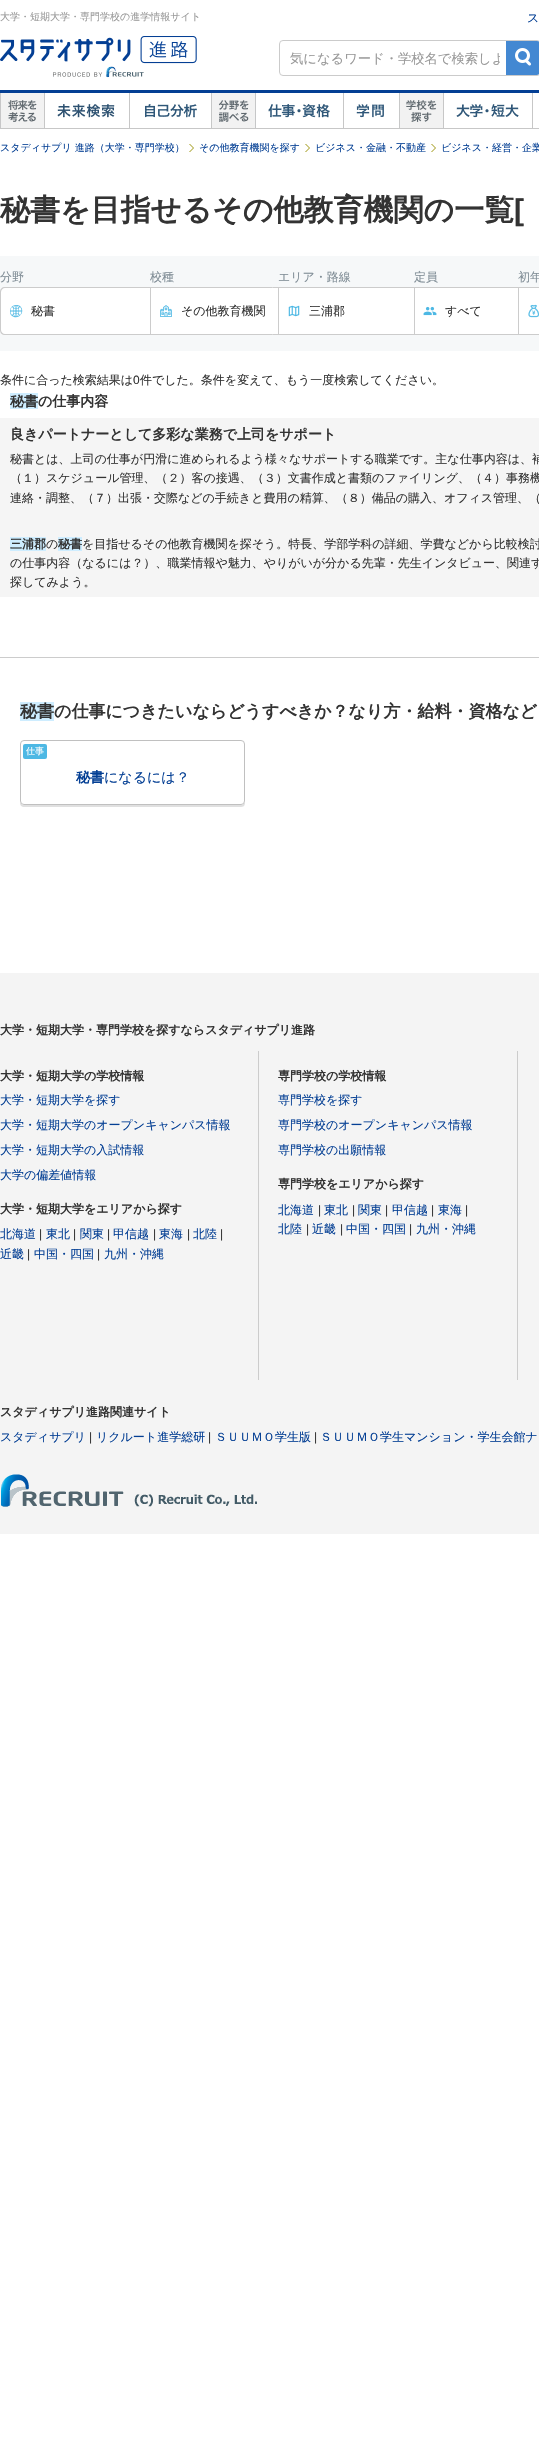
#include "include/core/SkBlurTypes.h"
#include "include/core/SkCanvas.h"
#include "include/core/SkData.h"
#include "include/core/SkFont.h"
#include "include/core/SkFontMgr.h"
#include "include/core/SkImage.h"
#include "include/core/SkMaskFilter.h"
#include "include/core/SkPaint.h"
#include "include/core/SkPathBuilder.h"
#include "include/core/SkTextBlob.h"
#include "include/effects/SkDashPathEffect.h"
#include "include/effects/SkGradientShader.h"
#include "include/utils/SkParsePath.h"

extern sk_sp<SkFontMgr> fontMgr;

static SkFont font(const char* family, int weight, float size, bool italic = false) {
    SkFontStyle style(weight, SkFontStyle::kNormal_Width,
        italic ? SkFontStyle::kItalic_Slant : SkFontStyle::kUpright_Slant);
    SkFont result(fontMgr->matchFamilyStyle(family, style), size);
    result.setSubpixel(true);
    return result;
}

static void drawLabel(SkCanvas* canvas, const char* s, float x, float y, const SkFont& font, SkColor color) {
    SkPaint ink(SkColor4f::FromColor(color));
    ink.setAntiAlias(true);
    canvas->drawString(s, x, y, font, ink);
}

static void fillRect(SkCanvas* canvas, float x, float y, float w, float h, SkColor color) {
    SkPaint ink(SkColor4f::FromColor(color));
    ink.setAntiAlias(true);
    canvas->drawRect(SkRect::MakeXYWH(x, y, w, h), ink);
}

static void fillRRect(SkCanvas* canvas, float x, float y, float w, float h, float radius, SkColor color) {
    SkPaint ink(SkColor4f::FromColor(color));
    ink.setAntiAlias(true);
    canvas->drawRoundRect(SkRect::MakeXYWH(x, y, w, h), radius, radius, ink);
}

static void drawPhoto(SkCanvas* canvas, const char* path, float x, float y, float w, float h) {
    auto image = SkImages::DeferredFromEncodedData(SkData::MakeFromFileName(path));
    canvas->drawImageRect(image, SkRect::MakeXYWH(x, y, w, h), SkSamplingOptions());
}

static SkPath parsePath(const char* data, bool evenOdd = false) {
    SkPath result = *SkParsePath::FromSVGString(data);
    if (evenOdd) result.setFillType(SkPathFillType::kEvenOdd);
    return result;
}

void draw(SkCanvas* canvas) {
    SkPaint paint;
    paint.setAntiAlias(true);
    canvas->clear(0xFFFFFFFF);
    SkFont font1 = font("WenQuanYi Zen Hei", 500, 10);
    drawLabel(canvas, "大学・短期大学・専門学校の進学情報サイト", 0, 20, font1, 0xFF999999);
    drawPhoto(canvas, "assets/img1.png", 0, 36, 197, 42);
    SkFont font2 = font("WenQuanYi Zen Hei", 500, 12);
    drawLabel(canvas, "ス", 527, 22, font2, 0xFF043F94);
    paint.setStroke(true);
    paint.setStrokeWidth(1);
    paint.setColor(0xFFCBCBCB);
    canvas->drawRoundRect(SkRect::MakeXYWH(279.5f, 40.5f, 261, 35), 3.5f, 3.5f, paint);
    canvas->save();
    canvas->clipRect(SkRect::MakeXYWH(290, 51, 210, 16));
    SkFont font3 = font("WenQuanYi Zen Hei", 500, 13.3f);
    drawLabel(canvas, "気になるワード・学校名で検索しよ", 290, 63, font3, 0xFF999999);
    canvas->restore();
    drawPhoto(canvas, "assets/img2.png", 506, 41, 33, 34);
    drawPhoto(canvas, "assets/img3.png", 0, 90, 539, 39);
    drawPhoto(canvas, "assets/img4.png", 0, 93, 44, 35);
    drawPhoto(canvas, "assets/img5.png", 44, 93, 71, 35);
    drawPhoto(canvas, "assets/img6.png", 129, 93, 68, 35);
    drawPhoto(canvas, "assets/img7.png", 211, 93, 44, 35);
    drawPhoto(canvas, "assets/img8.png", 255, 93, 75, 35);
    drawPhoto(canvas, "assets/img9.png", 343, 93, 41, 35);
    drawPhoto(canvas, "assets/img10.png", 399, 93, 44, 35);
    drawPhoto(canvas, "assets/img11.png", 443, 93, 76, 35);
    fillRect(canvas, 532, 93, 1, 35, 0xFFC7C7C7);
    drawLabel(canvas, "スタディサプリ 進路（大学・専門学校）", 0, 151, font1, 0xFF043F94);
    drawPhoto(canvas, "assets/img12.png", 189, 144, 5, 8);
    drawLabel(canvas, "その他教育機関を探す", 199, 151, font1, 0xFF043F94);
    drawPhoto(canvas, "assets/img12.png", 305, 144, 5, 8);
    drawLabel(canvas, "ビジネス・金融・不動産", 315, 151, font1, 0xFF043F94);
    drawPhoto(canvas, "assets/img12.png", 431, 144, 5, 8);
    drawLabel(canvas, "ビジネス・経営・企業", 441, 151, font1, 0xFF043F94);
    SkFont font4 = font("WenQuanYi Zen Hei", 700, 30);
    drawLabel(canvas, "秘書を目指せるその他教育機関の一覧", 0, 220, font4, 0xFF333333);
    SkFont font5 = font("Liberation Sans", 700, 30);
    drawLabel(canvas, "[", 514, 220, font5, 0xFF333333);
    fillRect(canvas, 0, 256, 539, 95, 0xFFF6F8F9);
    drawLabel(canvas, "分野", 0, 281, font2, 0xFF808D96);
    drawLabel(canvas, "校種", 150, 281, font2, 0xFF808D96);
    drawLabel(canvas, "エリア・路線", 278, 281, font2, 0xFF808D96);
    drawLabel(canvas, "定員", 414, 281, font2, 0xFF808D96);
    drawLabel(canvas, "初年", 518, 281, font2, 0xFF808D96);
    paint.setColor(0xFFCCCCCC);
    canvas->drawRoundRect(SkRect::MakeXYWH(0.5f, 287.5f, 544, 47), 4.5f, 4.5f, paint);
    paint.setStroke(false);
    paint.setColor(0xFFFFFFFF);
    canvas->drawPath(parsePath("M5 287H150V335H5C2 335 0 333 0 330V292C0 289 2 287 5 287Z"), paint);
    paint.setColor(0xFFCCCCCC);
    canvas->drawPath(parsePath("M5 287H150V335H5C2 335 0 333 0 330V292C0 289 2 287 5 287ZM5 288H150V334H5C3 334 1 332 1 330V292C1 290 3 288 5 288Z", true), paint);
    paint.setColor(0xFF4DB8E4);
    canvas->drawPath(parsePath("M20.5 306.5C26 312.5 17.5 321 11.5 315.5C10.5 314.5 10 313 10 311.5C10 307.5 12.5 305 16.5 305C18 305 19.5 305.5 20.5 306.5ZM15.5 305.5C14.5 306 14 307 14 308H15.5ZM16.5 305.5V308H18C18 307 17.5 306 16.5 305.5ZM14.5 305.5L12.5 307L13.5 307.5ZM19.5 307L17.5 305.5L18.5 307.5ZM21.5 310.5C21.5 309.5 21 308 20 307L19 308V310.5ZM12 307C11 308 10.5 309.5 10.5 310.5H13V308ZM15.5 310.5V308.5H13.5V310.5ZM18.5 308.5H16.5V310.5H18.5ZM13.5 313.5H15.5V311.5H13.5ZM16.5 311.5V313.5H18.5V311.5ZM10.5 311.5C10.5 312.5 11 314 12 315L13 314V311.5ZM20 315C21 314 21.5 312.5 21.5 311.5H19V314ZM16.5 316.5C17.5 316 18 315 18 314H16.5ZM15.5 316.5V314H14C14 315 14.5 316 15.5 316.5ZM17.5 316.5L19.5 315L18.5 314.5ZM12.5 315L14.5 316.5L13.5 314.5Z", true), paint);
    drawLabel(canvas, "秘書", 31, 315, font2, 0xFF333333);
    fillRect(canvas, 151, 288, 127, 46, 0xFFFFFFFF);
    fillRect(canvas, 150, 287, 1, 48, 0xFFCCCCCC);
    drawPhoto(canvas, "assets/img13.png", 160, 305, 12, 12);
    drawLabel(canvas, "その他教育機関", 181, 315, font2, 0xFF333333);
    fillRect(canvas, 279, 288, 135, 46, 0xFFFFFFFF);
    fillRect(canvas, 278, 287, 1, 48, 0xFFCCCCCC);
    drawPhoto(canvas, "assets/img14.png", 288, 305, 12, 12);
    drawLabel(canvas, "三浦郡", 309, 315, font2, 0xFF333333);
    fillRect(canvas, 415, 288, 103, 46, 0xFFFFFFFF);
    fillRect(canvas, 414, 287, 1, 48, 0xFFCCCCCC);
    drawPhoto(canvas, "assets/img15.png", 423, 306, 14, 10);
    drawLabel(canvas, "すべて", 445, 315, font2, 0xFF333333);
    fillRect(canvas, 519, 288, 20, 46, 0xFFFFFFFF);
    fillRect(canvas, 518, 287, 1, 48, 0xFFCCCCCC);
    drawPhoto(canvas, "assets/img16.png", 528, 304, 11, 14);
    drawLabel(canvas, "条件に合った検索結果は", 0, 384, font2, 0xFF333333);
    SkFont font6 = font("Liberation Sans", 400, 12);
    drawLabel(canvas, "0", 133, 384, font6, 0xFF333333);
    drawLabel(canvas, "件でした。条件を変えて、もう一度検索してください。", 140, 384, font2, 0xFF333333);
    fillRect(canvas, 10, 393, 28, 16, 0xFFCEEDFF);
    SkFont font7 = font("WenQuanYi Zen Hei", 700, 14);
    drawLabel(canvas, "秘書の仕事内容", 10, 406, font7, 0xFF333333);
    fillRect(canvas, 0, 418, 539, 179, 0xFFF5F5F5);
    drawLabel(canvas, "良きパートナーとして多彩な業務で上司をサポート", 10, 439, font7, 0xFF333333);
    drawLabel(canvas, "秘書とは、上司の仕事が円滑に進められるよう様々なサポートする職業です。主な仕事内容は、補", 10, 463, font2, 0xFF333333);
    drawLabel(canvas, "（１）スケジュール管理、（２）客の接遇、（３）文書作成と書類のファイリング、（４）事務機", 10, 482, font2, 0xFF333333);
    drawLabel(canvas, "連絡・調整、（７）出張・交際などの手続きと費用の精算、（８）備品の購入、オフィス管理、（", 10, 502, font2, 0xFF333333);
    fillRect(canvas, 10, 537, 36, 14, 0xFFCEEDFF);
    SkFont font8 = font("WenQuanYi Zen Hei", 700, 12);
    drawLabel(canvas, "三浦郡", 10, 548, font8, 0xFF333333);
    drawLabel(canvas, "の", 46, 548, font2, 0xFF333333);
    fillRect(canvas, 58, 537, 24, 14, 0xFFCEEDFF);
    drawLabel(canvas, "秘書", 58, 548, font8, 0xFF333333);
    drawLabel(canvas, "を目指せるその他教育機関を探そう。特長、学部学科の詳細、学費などから比較検討", 82, 548, font2, 0xFF333333);
    drawLabel(canvas, "の仕事内容（なるには？）、職業情報や魅力、やりがいが分かる先輩・先生インタビュー、関連す", 10, 567, font2, 0xFF333333);
    drawLabel(canvas, "探してみよう。", 10, 586, font2, 0xFF333333);
    fillRect(canvas, 0, 657, 539, 1, 0xFFCCCCCC);
    fillRect(canvas, 20, 702, 34, 19, 0xFFCEEDFF);
    SkFont font9 = font("WenQuanYi Zen Hei", 700, 17);
    drawLabel(canvas, "秘書の仕事につきたいならどうすべきか？なり方・給料・資格など", 20, 717, font9, 0xFF333333);
    paint.setColor(0xFFE0E0E0);
    canvas->drawPath(parsePath("M20 801C20 804 20 806 23 807H241C245 807 245 804 245 801C245 803 243 805 241 805H24C22 805 20 803 20 801Z"), paint);
    paint.setColor(0xFFFFFFFF);
    canvas->drawRoundRect(SkRect::MakeXYWH(20.5f, 740.5f, 224, 64), 3.5f, 3.5f, paint);
    paint.setStroke(true);
    paint.setColor(0xFFC0C0C0);
    canvas->drawRoundRect(SkRect::MakeXYWH(20.5f, 740.5f, 224, 64), 3.5f, 3.5f, paint);
    fillRRect(canvas, 23, 744, 24, 15, 2, 0xFF4DB8E4);
    SkFont font10 = font("WenQuanYi Zen Hei", 500, 9);
    drawLabel(canvas, "仕事", 26, 754, font10, 0xFFFFFFFF);
    drawLabel(canvas, "秘書", 76, 782, font7, 0xFF043F94);
    SkFont font11 = font("WenQuanYi Zen Hei", 500, 14);
    drawLabel(canvas, "になるには？", 104, 782, font11, 0xFF043F94);
    fillRect(canvas, 0, 973, 539, 561, 0xFFF4F4F4);
    drawLabel(canvas, "大学・短期大学・専門学校を探すならスタディサプリ進路", 0, 1034, font8, 0xFF333333);
    fillRect(canvas, 258, 1051, 1, 329, 0xFFCCCCCC);
    drawLabel(canvas, "大学・短期大学の学校情報", 0, 1080, font8, 0xFF333333);
    drawLabel(canvas, "大学・短期大学を探す", 0, 1104, font2, 0xFF043F94);
    drawLabel(canvas, "大学・短期大学のオープンキャンパス情報", 0, 1129, font2, 0xFF043F94);
    drawLabel(canvas, "大学・短期大学の入試情報", 0, 1154, font2, 0xFF043F94);
    drawLabel(canvas, "大学の偏差値情報", 0, 1179, font2, 0xFF043F94);
    drawLabel(canvas, "大学・短期大学をエリアから探す", 0, 1213, font8, 0xFF333333);
    drawLabel(canvas, "北海道", 0, 1238, font2, 0xFF043F94);
    drawLabel(canvas, "|", 39, 1238, font6, 0xFF333333);
    drawLabel(canvas, "東北", 46, 1238, font2, 0xFF043F94);
    drawLabel(canvas, "|", 73, 1238, font6, 0xFF333333);
    drawLabel(canvas, "関東", 80, 1238, font2, 0xFF043F94);
    drawLabel(canvas, "|", 107, 1238, font6, 0xFF333333);
    drawLabel(canvas, "甲信越", 113, 1238, font2, 0xFF043F94);
    drawLabel(canvas, "|", 153, 1238, font6, 0xFF333333);
    drawLabel(canvas, "東海", 159, 1238, font2, 0xFF043F94);
    drawLabel(canvas, "|", 187, 1238, font6, 0xFF333333);
    drawLabel(canvas, "北陸", 193, 1238, font2, 0xFF043F94);
    drawLabel(canvas, "|", 220, 1238, font6, 0xFF333333);
    drawLabel(canvas, "近畿", 0, 1258, font2, 0xFF043F94);
    drawLabel(canvas, "|", 27, 1258, font6, 0xFF333333);
    drawLabel(canvas, "中国・四国", 34, 1258, font2, 0xFF043F94);
    drawLabel(canvas, "|", 97, 1258, font6, 0xFF333333);
    drawLabel(canvas, "九州・沖縄", 104, 1258, font2, 0xFF043F94);
    fillRect(canvas, 517, 1051, 1, 329, 0xFFCCCCCC);
    drawLabel(canvas, "専門学校の学校情報", 278, 1080, font8, 0xFF333333);
    drawLabel(canvas, "専門学校を探す", 278, 1104, font2, 0xFF043F94);
    drawLabel(canvas, "専門学校のオープンキャンパス情報", 278, 1129, font2, 0xFF043F94);
    drawLabel(canvas, "専門学校の出願情報", 278, 1154, font2, 0xFF043F94);
    drawLabel(canvas, "専門学校をエリアから探す", 278, 1188, font8, 0xFF333333);
    drawLabel(canvas, "北海道", 278, 1214, font2, 0xFF043F94);
    drawLabel(canvas, "|", 318, 1214, font6, 0xFF333333);
    drawLabel(canvas, "東北", 324, 1214, font2, 0xFF043F94);
    drawLabel(canvas, "|", 352, 1214, font6, 0xFF333333);
    drawLabel(canvas, "関東", 358, 1214, font2, 0xFF043F94);
    drawLabel(canvas, "|", 385, 1214, font6, 0xFF333333);
    drawLabel(canvas, "甲信越", 392, 1214, font2, 0xFF043F94);
    drawLabel(canvas, "|", 431, 1214, font6, 0xFF333333);
    drawLabel(canvas, "東海", 438, 1214, font2, 0xFF043F94);
    drawLabel(canvas, "|", 465, 1214, font6, 0xFF333333);
    drawLabel(canvas, "北陸", 278, 1233, font2, 0xFF043F94);
    drawLabel(canvas, "|", 306, 1233, font6, 0xFF333333);
    drawLabel(canvas, "近畿", 312, 1233, font2, 0xFF043F94);
    drawLabel(canvas, "|", 340, 1233, font6, 0xFF333333);
    drawLabel(canvas, "中国・四国", 346, 1233, font2, 0xFF043F94);
    drawLabel(canvas, "|", 409, 1233, font6, 0xFF333333);
    drawLabel(canvas, "九州・沖縄", 416, 1233, font2, 0xFF043F94);
    drawLabel(canvas, "スタディサプリ進路関連サイト", 0, 1416, font8, 0xFF333333);
    drawLabel(canvas, "スタディサプリ", 0, 1441, font2, 0xFF043F94);
    drawLabel(canvas, "|", 89, 1441, font6, 0xFF333333);
    drawLabel(canvas, "リクルート進学総研", 96, 1441, font2, 0xFF043F94);
    drawLabel(canvas, "|", 208, 1441, font6, 0xFF333333);
    drawLabel(canvas, "ＳＵＵＭＯ学生版", 215, 1441, font2, 0xFF043F94);
    drawLabel(canvas, "|", 314, 1441, font6, 0xFF333333);
    drawLabel(canvas, "ＳＵＵＭＯ学生マンション・学生会館ナ", 320, 1441, font2, 0xFF043F94);
    drawPhoto(canvas, "assets/img17.png", 1, 1474, 256, 33);
}
